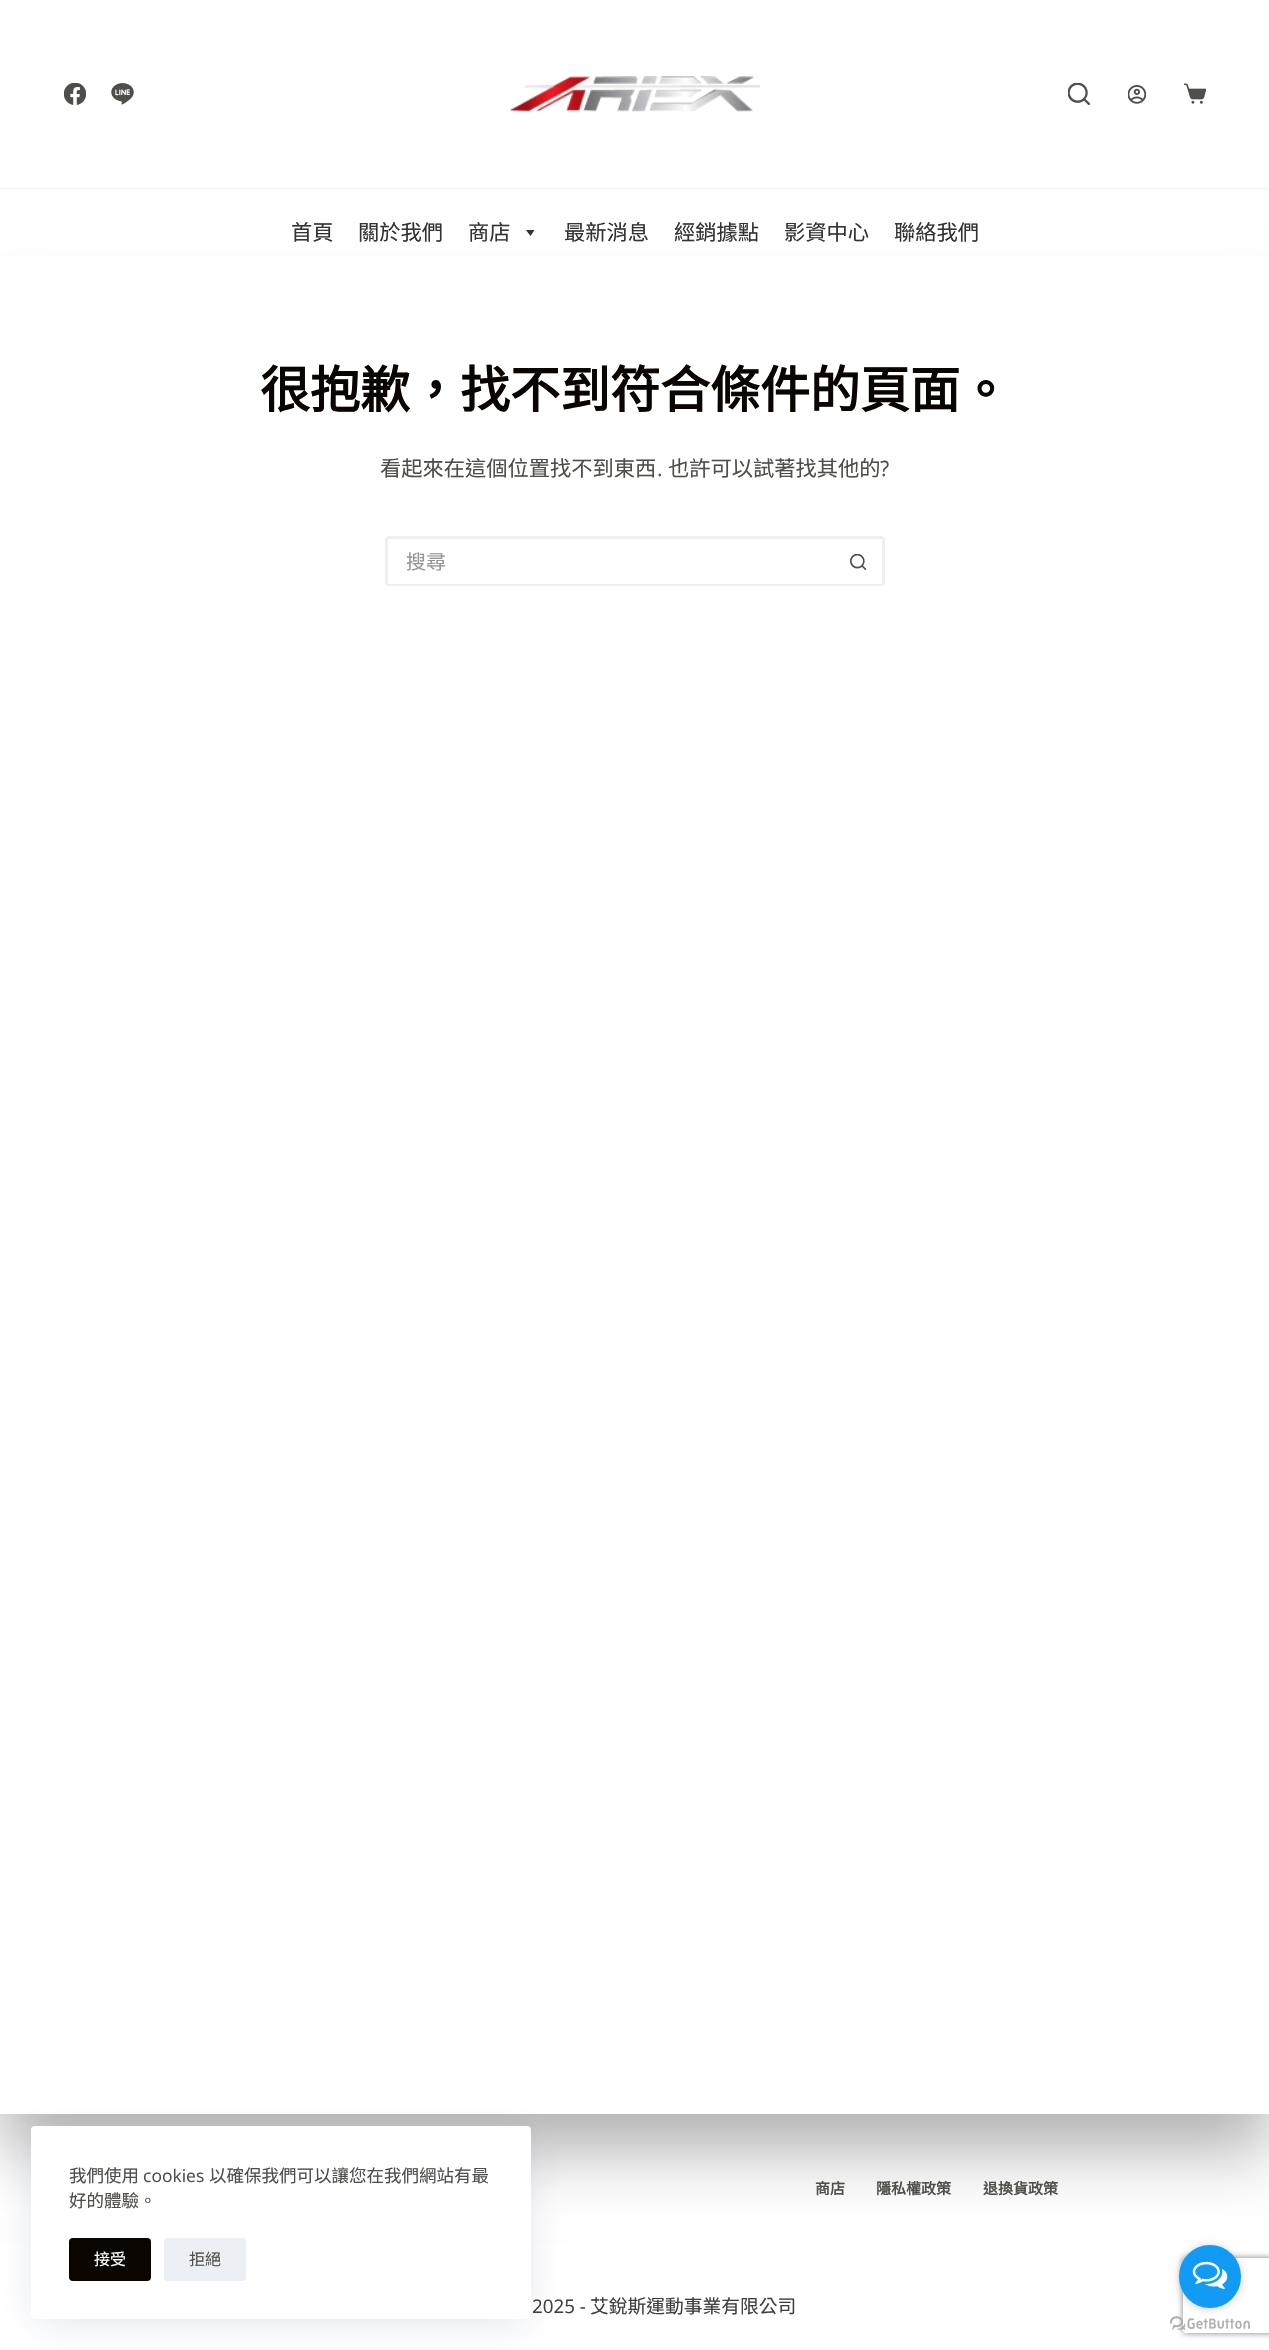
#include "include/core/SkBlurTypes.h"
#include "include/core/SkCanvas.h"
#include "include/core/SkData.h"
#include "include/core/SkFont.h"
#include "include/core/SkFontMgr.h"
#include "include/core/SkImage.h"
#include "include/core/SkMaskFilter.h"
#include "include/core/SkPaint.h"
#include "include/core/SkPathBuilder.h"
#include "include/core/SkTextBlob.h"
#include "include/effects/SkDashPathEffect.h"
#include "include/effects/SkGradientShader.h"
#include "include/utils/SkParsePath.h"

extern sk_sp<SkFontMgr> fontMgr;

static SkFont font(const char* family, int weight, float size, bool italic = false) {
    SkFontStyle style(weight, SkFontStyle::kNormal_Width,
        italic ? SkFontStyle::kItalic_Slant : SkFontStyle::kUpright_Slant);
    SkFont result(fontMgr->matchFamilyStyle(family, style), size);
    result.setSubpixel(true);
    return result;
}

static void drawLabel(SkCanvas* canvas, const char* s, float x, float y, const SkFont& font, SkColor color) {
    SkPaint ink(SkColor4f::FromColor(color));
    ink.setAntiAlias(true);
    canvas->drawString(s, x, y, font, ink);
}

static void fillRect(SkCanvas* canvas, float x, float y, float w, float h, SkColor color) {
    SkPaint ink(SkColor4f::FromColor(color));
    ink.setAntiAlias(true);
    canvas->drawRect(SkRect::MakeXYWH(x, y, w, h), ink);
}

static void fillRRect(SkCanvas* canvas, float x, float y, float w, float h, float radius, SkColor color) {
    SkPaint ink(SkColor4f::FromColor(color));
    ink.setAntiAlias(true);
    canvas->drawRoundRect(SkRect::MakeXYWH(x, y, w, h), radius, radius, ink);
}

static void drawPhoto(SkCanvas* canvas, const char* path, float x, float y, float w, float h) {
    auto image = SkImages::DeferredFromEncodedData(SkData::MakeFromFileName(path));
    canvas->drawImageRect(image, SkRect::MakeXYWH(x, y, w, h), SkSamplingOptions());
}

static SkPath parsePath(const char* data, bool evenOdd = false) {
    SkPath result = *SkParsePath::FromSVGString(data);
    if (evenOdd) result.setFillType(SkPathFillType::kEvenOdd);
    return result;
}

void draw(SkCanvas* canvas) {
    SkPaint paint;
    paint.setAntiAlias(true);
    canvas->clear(0xFFFFFFFF);
    drawPhoto(canvas, "assets/img1.png", 64, 83, 22, 22);
    drawPhoto(canvas, "assets/img2.png", 111, 83, 23, 22);
    drawPhoto(canvas, "assets/img3.png", 510, 76, 250, 36);
    drawPhoto(canvas, "assets/img4.png", 1068, 83, 22, 22);
    drawPhoto(canvas, "assets/img5.png", 1128, 85, 18, 19);
    drawPhoto(canvas, "assets/img6.png", 1184, 83, 22, 21);
    fillRect(canvas, 0, 188, 1269, 1, 0xFFF2F1F1);
    paint.setColor(0x4D000000);
    paint.setMaskFilter(SkMaskFilter::MakeBlur(kNormal_SkBlurStyle, 31));
    canvas->drawRect(SkRect::MakeXYWH(0, 314, 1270, 1837), paint);
    paint.setMaskFilter(nullptr);
    SkFont font1 = font("Noto Sans CJK TC", 400, 21.25f);
    drawLabel(canvas, "首頁", 291, 240, font1, 0xFF333333);
    drawLabel(canvas, "關於我們", 358, 240, font1, 0xFF333333);
    drawLabel(canvas, "商店", 468, 240, font1, 0xFF333333);
    paint.setColor(0xFF333333);
    canvas->drawPath(parsePath("M534.5 230L530.5 236L526 230Z"), paint);
    drawLabel(canvas, "最新消息", 564, 240, font1, 0xFF333333);
    drawLabel(canvas, "經銷據點", 674, 240, font1, 0xFF333333);
    drawLabel(canvas, "影資中心", 784, 240, font1, 0xFF333333);
    drawLabel(canvas, "聯絡我們", 894, 240, font1, 0xFF333333);
    fillRect(canvas, 0, 257, 1269, 1857, 0xFFFFFFFF);
    SkFont font2 = font("Noto Sans CJK TC", 700, 50);
    drawLabel(canvas, "很抱歉，找不到符合條件的頁面。", 260, 408, font2, 0xFF0A0500);
    drawLabel(canvas, "看起來在這個位置找不到東西", 380, 476, font1, 0xFF504E4A);
    SkFont font3 = font("Open Sans", 400, 21.25f);
    drawLabel(canvas, ".", 657, 476, font3, 0xFF504E4A);
    drawLabel(canvas, "也許可以試著找其他的", 668, 476, font1, 0xFF504E4A);
    drawLabel(canvas, "?", 880, 476, font3, 0xFF504E4A);
    paint.setColor(0xFFEDEFF2);
    canvas->drawPath(parsePath("M389 536H835V586H389C387 586 385 585 385 582V540C385 538 387 536 389 536ZM389 539H835V584H388V583V540C388 539 388 539 389 539Z", true), paint);
    SkFont font4 = font("Noto Sans CJK TC", 400, 20);
    drawLabel(canvas, "搜尋", 406, 569, font4, 0xFF969592);
    canvas->drawPath(parsePath("M835 536H881C883 536 885 538 885 540V582C885 585 883 586 881 586H835ZM835 539H881C882 539 882 539 882 540V582C882 583 882 584 881 584H835Z", true), paint);
    drawPhoto(canvas, "assets/img7.png", 850, 554, 16, 16);
    SkFont font5 = font("Noto Sans CJK TC", 700, 15);
    drawLabel(canvas, "商店", 815, 2194, font5, 0xFF504E4A);
    drawLabel(canvas, "隱私權政策", 876, 2194, font5, 0xFF504E4A);
    drawLabel(canvas, "退換貨政策", 983, 2194, font5, 0xFF504E4A);
    SkFont font6 = font("Open Sans", 400, 18.75f);
    drawLabel(canvas, "2025 -", 532, 2313, font6, 0xFF3F3F3F);
    SkFont font7 = font("Noto Sans CJK TC", 400, 18.75f);
    drawLabel(canvas, "艾銳斯運動事業有限公司", 590, 2313, font7, 0xFF3F3F3F);
    paint.setColor(0x26223865);
    paint.setMaskFilter(SkMaskFilter::MakeBlur(kNormal_SkBlurStyle, 19));
    canvas->drawRect(SkRect::MakeXYWH(38, 2139, 487, 180), paint);
    paint.setMaskFilter(nullptr);
    fillRRect(canvas, 31, 2126, 500, 193, 4, 0xFFFFFFFF);
    SkFont font8 = font("Noto Sans CJK TC", 400, 17.5f);
    drawLabel(canvas, "我們使用", 69, 2182, font8, 0xFF504E4A);
    SkFont font9 = font("Open Sans", 400, 17.5f);
    drawLabel(canvas, "cookies", 143, 2182, font9, 0xFF504E4A);
    drawLabel(canvas, "以確保我們可以讓您在我們網站有最", 209, 2182, font8, 0xFF504E4A);
    drawLabel(canvas, "好的體驗。", 69, 2207, font8, 0xFF504E4A);
    fillRRect(canvas, 69, 2238, 82, 43, 4, 0xFF0A0500);
    SkFont font10 = font("Noto Sans CJK TC", 400, 16);
    drawLabel(canvas, "接受", 94, 2265, font10, 0xFFFFFFFF);
    fillRRect(canvas, 164, 2238, 82, 43, 4, 0xFFECEFF3);
    drawLabel(canvas, "拒絕", 189, 2265, font10, 0xFF504E4A);
    canvas->save();
    canvas->clipPath(parsePath("M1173 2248H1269V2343H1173ZM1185.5 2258H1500.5C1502 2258 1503 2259 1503 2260.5V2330.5C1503 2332 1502 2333 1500.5 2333H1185.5C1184 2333 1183 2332 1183 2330.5V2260.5C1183 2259 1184 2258 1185.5 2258Z", true), true);
    paint.setColor(0xFF808080);
    paint.setMaskFilter(SkMaskFilter::MakeBlur(kNormal_SkBlurStyle, 3));
    canvas->drawRoundRect(SkRect::MakeXYWH(1183, 2258, 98, 75), 2.5f, 2.5f, paint);
    paint.setMaskFilter(nullptr);
    canvas->restore();
    drawPhoto(canvas, "assets/img9.png", 1170, 2316, 80, 14);
    paint.setColor(0x66888888);
    paint.setMaskFilter(SkMaskFilter::MakeBlur(kNormal_SkBlurStyle, 4.5f));
    canvas->drawRoundRect(SkRect::MakeXYWH(1179, 2246, 62, 63), 31, 31, paint);
    paint.setMaskFilter(nullptr);
    fillRRect(canvas, 1179, 2245, 62, 63, 31, 0xFF129BF4);
    drawPhoto(canvas, "assets/img8.png", 1192, 2261, 36, 28);
}
